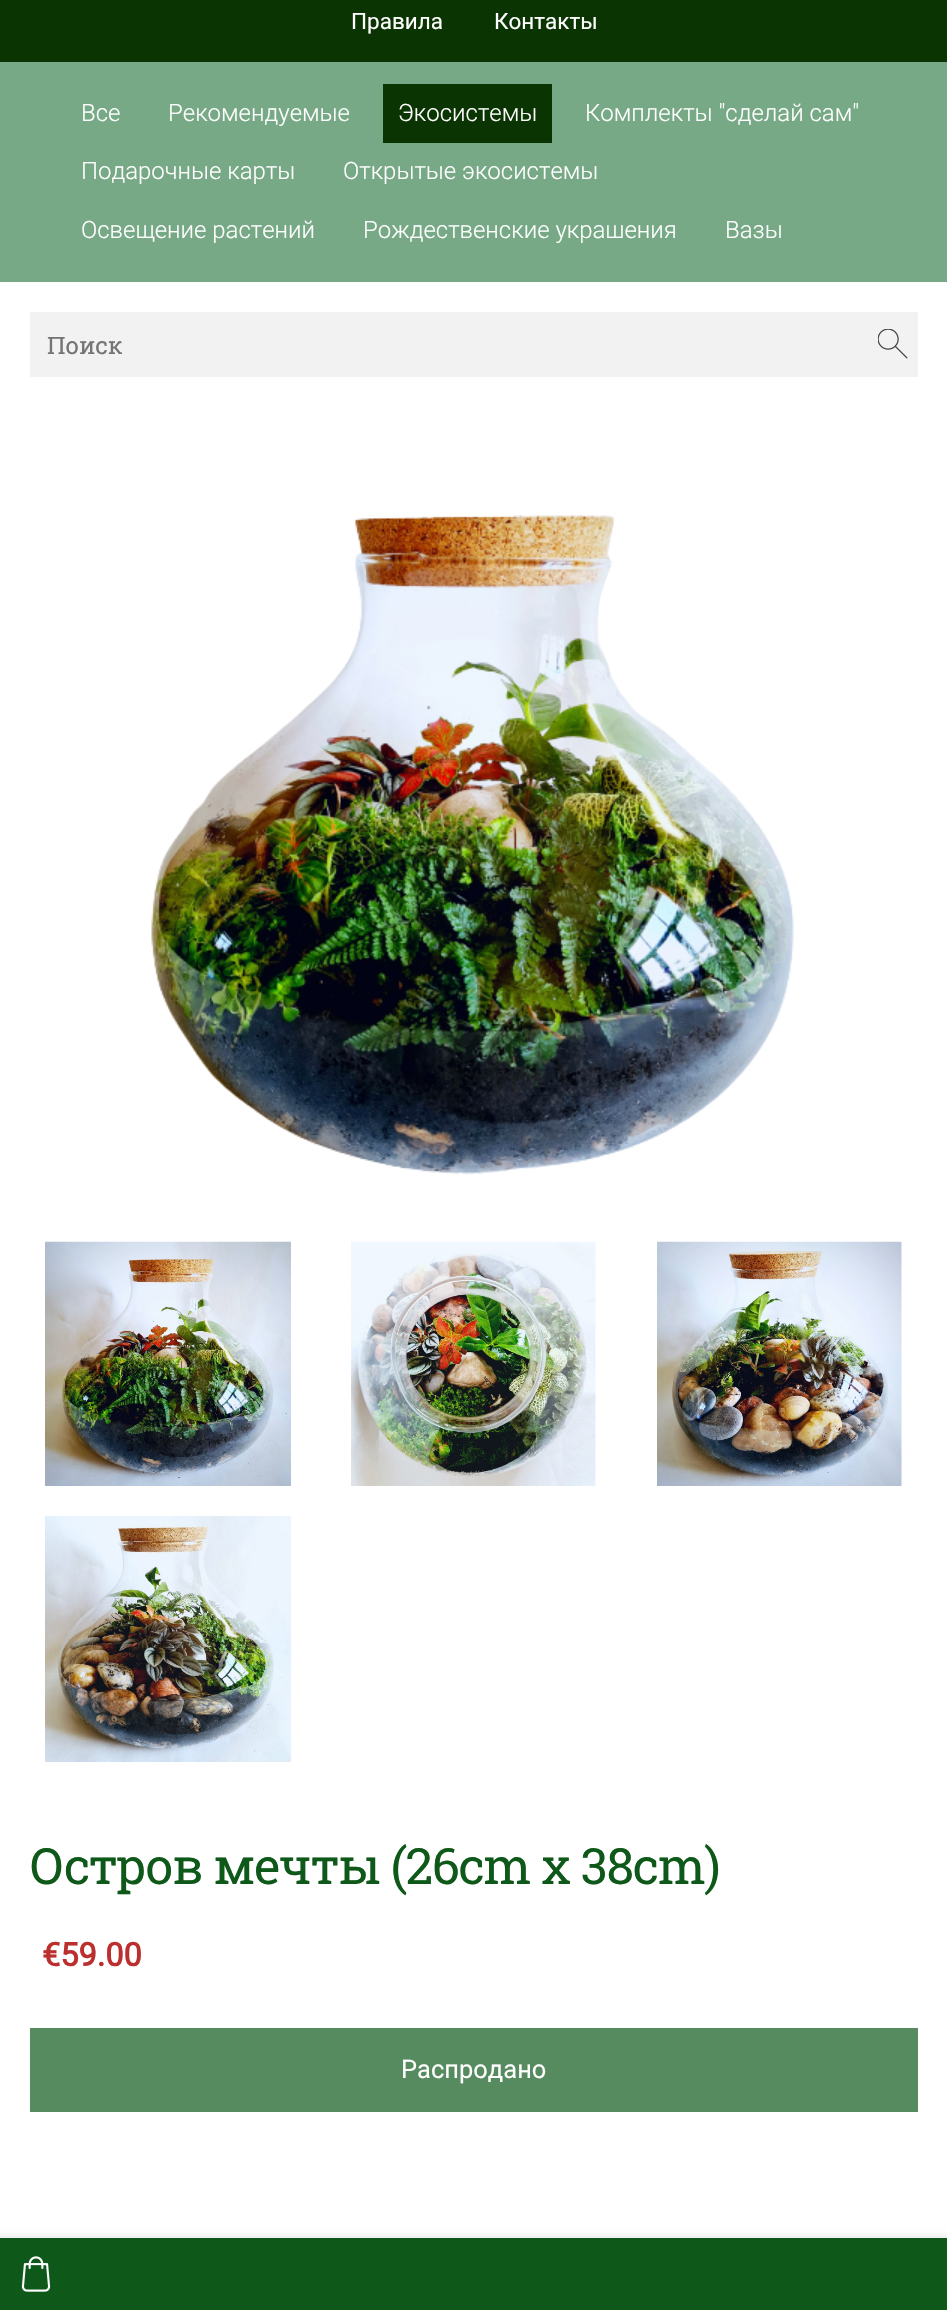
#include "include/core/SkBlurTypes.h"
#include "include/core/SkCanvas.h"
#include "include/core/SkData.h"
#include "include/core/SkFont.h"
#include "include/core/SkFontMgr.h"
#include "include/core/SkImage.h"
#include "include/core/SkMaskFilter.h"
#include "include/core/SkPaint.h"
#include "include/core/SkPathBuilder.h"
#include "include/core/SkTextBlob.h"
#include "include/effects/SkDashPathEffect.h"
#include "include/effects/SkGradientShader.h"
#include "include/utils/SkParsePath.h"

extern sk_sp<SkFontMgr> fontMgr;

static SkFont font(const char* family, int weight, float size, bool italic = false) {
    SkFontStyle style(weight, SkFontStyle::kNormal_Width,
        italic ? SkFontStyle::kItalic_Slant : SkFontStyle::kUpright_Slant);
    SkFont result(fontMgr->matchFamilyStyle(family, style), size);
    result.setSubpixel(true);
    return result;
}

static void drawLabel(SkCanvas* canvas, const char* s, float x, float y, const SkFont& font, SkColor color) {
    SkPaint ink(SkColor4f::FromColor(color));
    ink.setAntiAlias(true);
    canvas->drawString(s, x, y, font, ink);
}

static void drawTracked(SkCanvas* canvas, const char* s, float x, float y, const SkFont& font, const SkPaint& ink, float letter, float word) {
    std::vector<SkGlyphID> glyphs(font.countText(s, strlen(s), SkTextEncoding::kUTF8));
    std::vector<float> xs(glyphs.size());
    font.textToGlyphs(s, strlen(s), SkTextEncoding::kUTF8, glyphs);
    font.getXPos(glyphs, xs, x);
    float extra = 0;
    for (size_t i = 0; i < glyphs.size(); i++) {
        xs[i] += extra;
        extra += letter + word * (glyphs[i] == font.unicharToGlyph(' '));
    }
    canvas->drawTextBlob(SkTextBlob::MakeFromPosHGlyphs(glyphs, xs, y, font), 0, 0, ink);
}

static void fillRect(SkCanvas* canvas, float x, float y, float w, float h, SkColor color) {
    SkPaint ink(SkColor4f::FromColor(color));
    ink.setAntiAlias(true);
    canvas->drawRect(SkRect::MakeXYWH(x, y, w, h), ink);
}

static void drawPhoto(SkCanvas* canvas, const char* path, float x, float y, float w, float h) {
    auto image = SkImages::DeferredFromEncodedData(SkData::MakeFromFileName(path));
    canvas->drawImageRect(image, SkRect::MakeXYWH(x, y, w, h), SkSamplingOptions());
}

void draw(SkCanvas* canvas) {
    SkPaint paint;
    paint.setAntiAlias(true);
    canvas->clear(0xFFFFFFFF);
    fillRect(canvas, 0, 0, 947, 62, 0xFF0A3401);
    SkFont font1 = font("Roboto", 400, 22.5f);
    drawLabel(canvas, "Правила", 351, 29, font1, 0xFFFFFFFF);
    drawLabel(canvas, "Контакты", 494, 29, font1, 0xFFFFFFFF);
    fillRect(canvas, 0, 62, 947, 220, 0xFF78A986);
    SkFont font2 = font("Roboto", 300, 24);
    drawLabel(canvas, "Все", 81, 121, font2, 0xFFFFFFFF);
    drawLabel(canvas, "Рекомендуемые", 168, 121, font2, 0xFFFFFFFF);
    fillRect(canvas, 383, 84, 169, 59, 0xFF0A3401);
    drawLabel(canvas, "Экосистемы", 398, 121, font2, 0xFFFFFFFF);
    drawLabel(canvas, "Комплекты \"сделай сам\"", 585, 121, font2, 0xFFFFFFFF);
    drawLabel(canvas, "Подарочные карты", 81, 179, font2, 0xFFFFFFFF);
    drawLabel(canvas, "Открытые экосистемы", 343, 179, font2, 0xFFFFFFFF);
    drawLabel(canvas, "Освещение растений", 81, 238, font2, 0xFFFFFFFF);
    drawLabel(canvas, "Рождественские украшения", 363, 238, font2, 0xFFFFFFFF);
    drawLabel(canvas, "Вазы", 725, 238, font2, 0xFFFFFFFF);
    fillRect(canvas, 30, 312, 888, 65, 0xFFF2F2F2);
    SkFont font3 = font("Roboto Slab", 400, 24);
    drawLabel(canvas, "Поиск", 47, 354, font3, 0xFF757575);
    drawPhoto(canvas, "assets/img1.png", 878, 329, 30, 30);
    drawPhoto(canvas, "assets/img2.png", 151, 515, 643, 660);
    drawPhoto(canvas, "assets/img3.png", 45, 1241, 246, 245);
    drawPhoto(canvas, "assets/img4.png", 351, 1241, 245, 245);
    drawPhoto(canvas, "assets/img5.png", 657, 1241, 245, 245);
    drawPhoto(canvas, "assets/img6.png", 45, 1516, 246, 246);
    SkFont font4 = font("Roboto Slab", 400, 50);
    paint.setColor(0xFF0E591A);
    drawTracked(canvas, "Остров мечты (26cm x 38cm)", 30, 1884, font4, paint, -1.25f, 0);
    SkFont font5 = font("Roboto", 700, 32.5f);
    drawLabel(canvas, "€59.00", 42, 1966, font5, 0xFFBC2F2F);
    fillRect(canvas, 30, 2028, 888, 84, 0xFF568B5F);
    SkFont font6 = font("Roboto", 400, 25.5f);
    drawLabel(canvas, "Распродано", 401, 2078, font6, 0xFFFFFFFF);
    paint.setColor(0x1A000000);
    paint.setMaskFilter(SkMaskFilter::MakeBlur(kNormal_SkBlurStyle, 4));
    canvas->drawRect(SkRect::MakeXYWH(-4, 2237, 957, 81), paint);
    paint.setMaskFilter(nullptr);
    fillRect(canvas, 0, 2238, 947, 72, 0xFF0E591A);
    drawPhoto(canvas, "assets/img7.png", 21, 2256, 30, 36);
}
